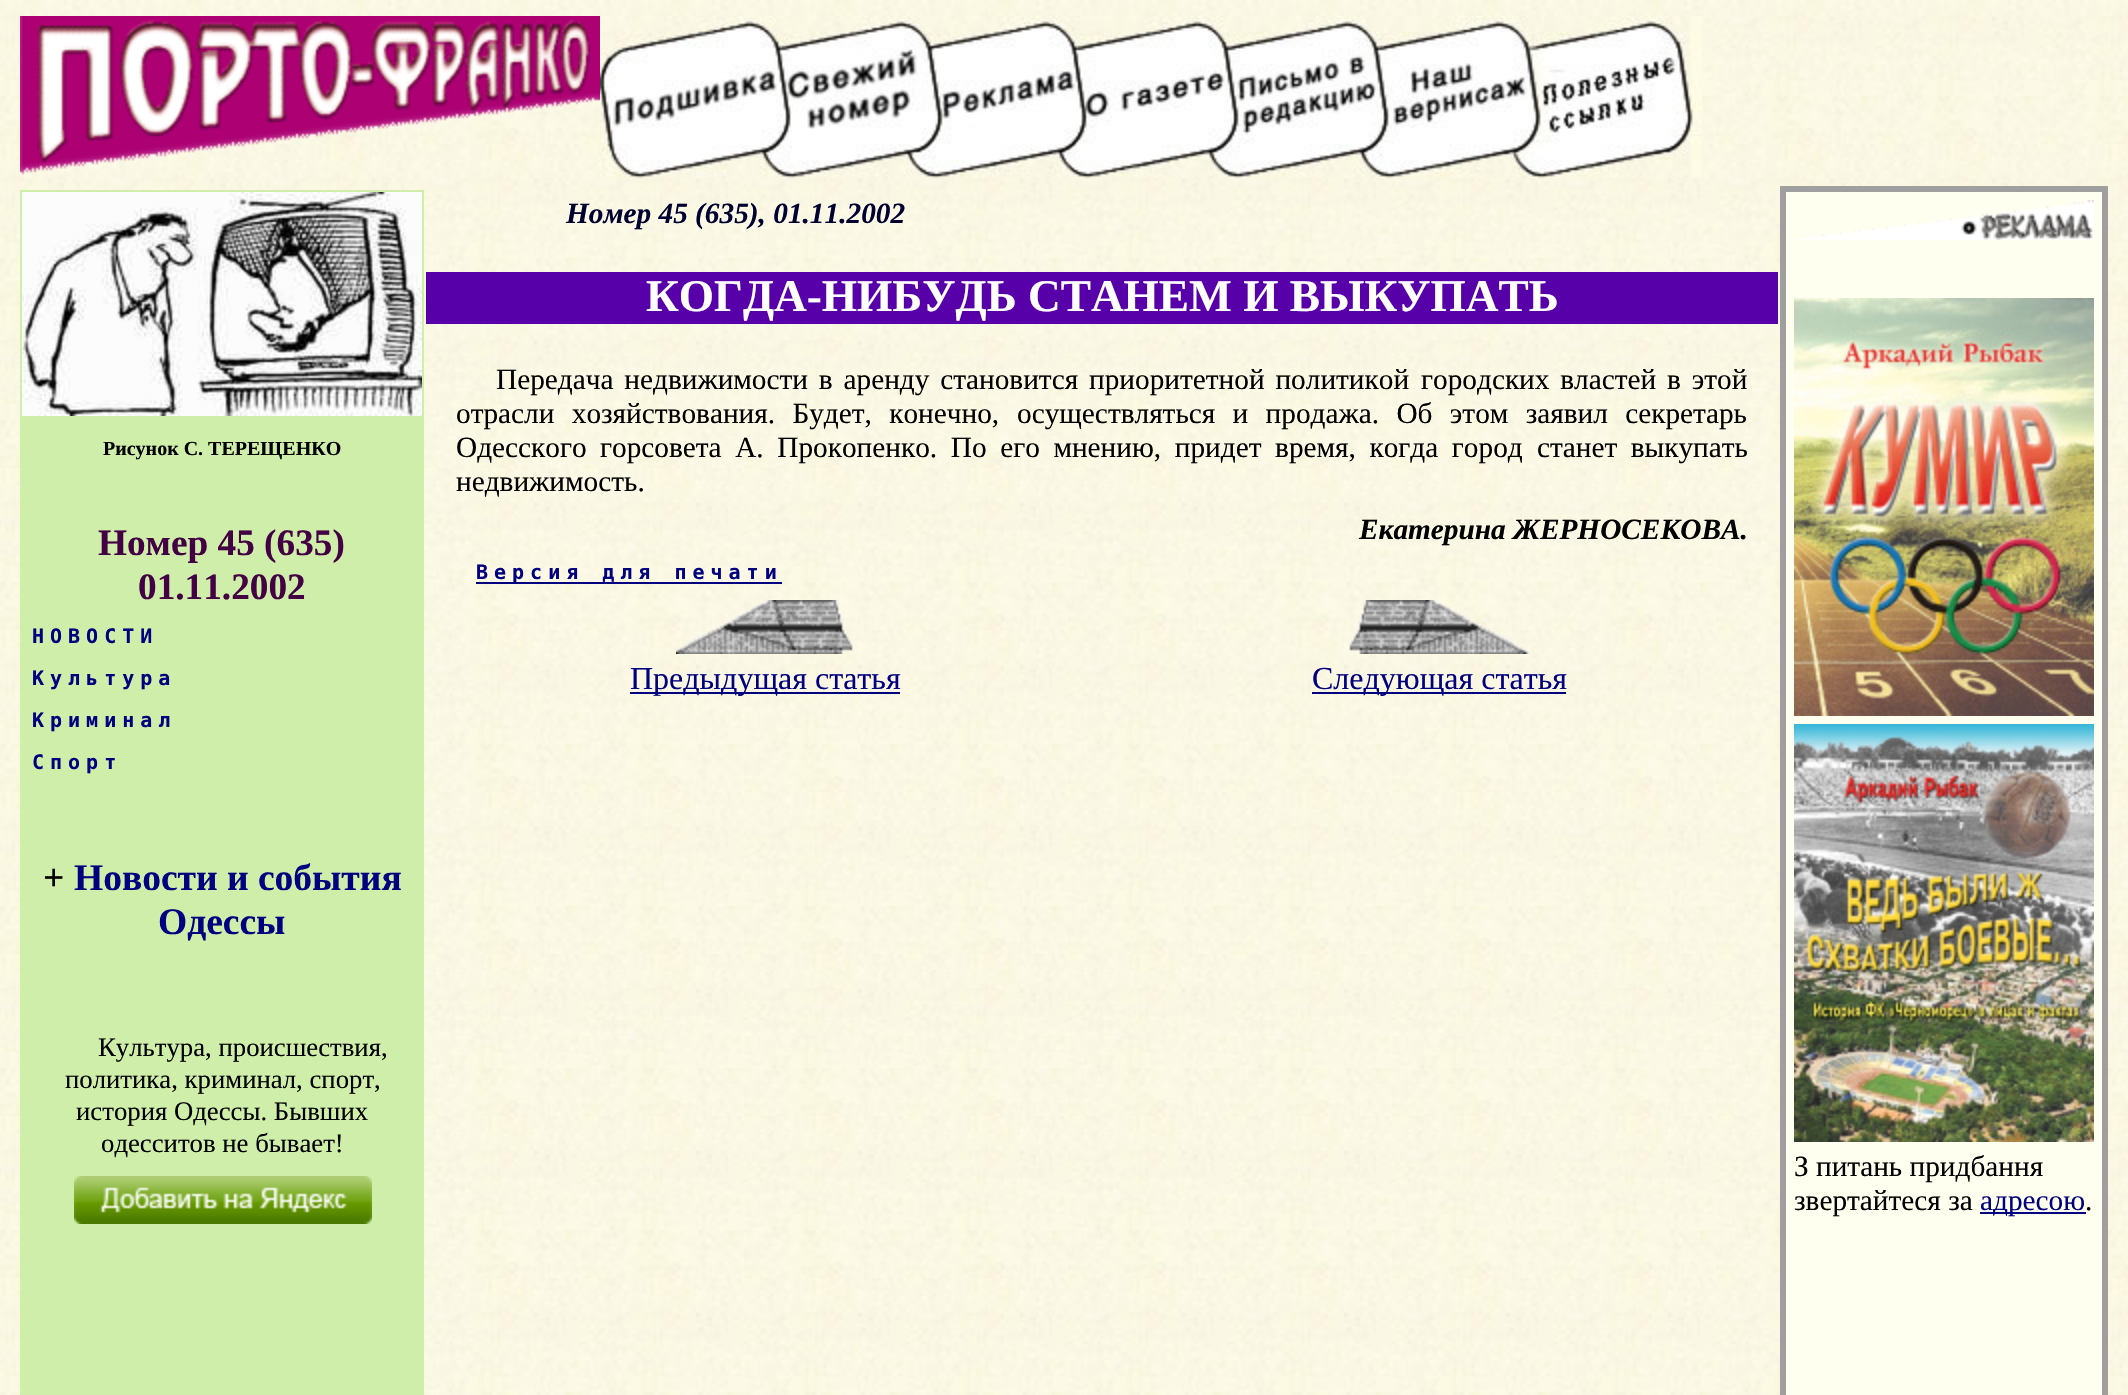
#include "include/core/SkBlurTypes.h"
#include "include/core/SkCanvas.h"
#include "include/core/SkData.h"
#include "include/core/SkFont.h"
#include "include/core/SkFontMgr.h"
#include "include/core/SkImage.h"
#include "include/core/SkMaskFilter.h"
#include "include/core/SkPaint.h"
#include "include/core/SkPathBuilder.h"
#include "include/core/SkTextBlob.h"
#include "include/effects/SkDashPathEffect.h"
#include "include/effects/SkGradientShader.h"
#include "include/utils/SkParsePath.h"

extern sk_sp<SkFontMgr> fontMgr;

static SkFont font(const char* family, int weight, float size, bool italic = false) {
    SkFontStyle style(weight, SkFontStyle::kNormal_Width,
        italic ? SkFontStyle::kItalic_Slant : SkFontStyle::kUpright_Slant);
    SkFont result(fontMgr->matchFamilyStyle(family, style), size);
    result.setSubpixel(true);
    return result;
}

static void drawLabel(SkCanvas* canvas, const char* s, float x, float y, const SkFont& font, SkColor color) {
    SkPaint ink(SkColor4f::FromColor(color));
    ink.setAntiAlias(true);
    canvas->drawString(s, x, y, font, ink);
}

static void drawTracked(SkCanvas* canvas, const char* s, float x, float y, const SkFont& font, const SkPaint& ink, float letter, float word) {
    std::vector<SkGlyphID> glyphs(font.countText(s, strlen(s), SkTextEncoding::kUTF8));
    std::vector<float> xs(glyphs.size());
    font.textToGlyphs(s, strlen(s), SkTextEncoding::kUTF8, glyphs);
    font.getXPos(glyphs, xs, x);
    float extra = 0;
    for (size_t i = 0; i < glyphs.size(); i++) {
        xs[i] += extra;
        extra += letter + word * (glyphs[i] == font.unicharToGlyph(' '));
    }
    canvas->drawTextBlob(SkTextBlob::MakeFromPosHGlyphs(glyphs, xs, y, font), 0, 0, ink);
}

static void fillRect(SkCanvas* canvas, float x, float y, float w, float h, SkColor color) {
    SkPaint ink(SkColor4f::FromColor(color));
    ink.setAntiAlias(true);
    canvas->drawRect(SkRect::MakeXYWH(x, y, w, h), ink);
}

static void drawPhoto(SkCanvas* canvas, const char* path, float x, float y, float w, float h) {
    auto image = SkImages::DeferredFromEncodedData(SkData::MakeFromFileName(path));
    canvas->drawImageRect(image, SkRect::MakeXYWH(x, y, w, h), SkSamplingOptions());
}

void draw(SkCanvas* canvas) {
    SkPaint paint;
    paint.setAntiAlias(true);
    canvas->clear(0xFFFFFFFF);
    drawPhoto(canvas, "assets/img1.png", 0, 0, 2128, 1395);
    drawPhoto(canvas, "assets/img2.png", 20, 16, 580, 159);
    drawPhoto(canvas, "assets/img3.png", 600, 16, 1102, 162);
    fillRect(canvas, 20, 190, 404, 1205, 0xFFCEEEAA);
    drawPhoto(canvas, "assets/img4.png", 22, 192, 400, 224);
    SkFont font1 = font("Liberation Serif", 700, 20);
    drawLabel(canvas, "Рисунок С. ТЕРЕЩЕНКО", 103, 455, font1, 0xFF000000);
    SkFont font2 = font("Liberation Serif", 700, 37.25f);
    drawLabel(canvas, "Номер 45 (635)", 98, 555, font2, 0xFF440044);
    drawLabel(canvas, "01.11.2002", 138, 599, font2, 0xFF440044);
    SkFont font3 = font("DejaVu Sans Mono", 700, 20);
    paint.setColor(0xFF000080);
    drawTracked(canvas, "НОВОСТИ", 32, 643, font3, paint, 6, 0);
    drawTracked(canvas, "Культура", 32, 685, font3, paint, 6, 0);
    drawTracked(canvas, "Криминал", 32, 727, font3, paint, 6, 0);
    drawTracked(canvas, "Спорт", 32, 769, font3, paint, 6, 0);
    SkFont font4 = font("Liberation Serif", 700, 37.5f);
    drawLabel(canvas, "+", 43, 890, font4, 0xFF000000);
    drawLabel(canvas, "Новости и события", 74, 890, font4, 0xFF000080);
    drawLabel(canvas, "Одессы", 158, 934, font4, 0xFF000080);
    SkFont font5 = font("Liberation Serif", 400, 26.75f);
    drawLabel(canvas, "Культура, происшествия,", 98, 1056, font5, 0xFF000000);
    drawLabel(canvas, "политика, криминал, спорт,", 65, 1088, font5, 0xFF000000);
    drawLabel(canvas, "история Одессы. Бывших", 76, 1120, font5, 0xFF000000);
    drawLabel(canvas, "одесситов не бывает!", 101, 1152, font5, 0xFF000000);
    drawPhoto(canvas, "assets/img5.png", 74, 1176, 298, 48);
    SkFont font6 = font("Liberation Serif", 700, 29.3f, true);
    drawLabel(canvas, "Номер 45 (635), 01.11.2002", 566, 223, font6, 0xFF000030);
    fillRect(canvas, 426, 272, 1352, 52, 0xFF5700AA);
    SkFont font7 = font("Liberation Serif", 700, 45.3f);
    drawLabel(canvas, "КОГДА-НИБУДЬ СТАНЕМ И ВЫКУПАТЬ", 646, 311, font7, 0xFFFFFFFF);
    SkFont font8 = font("Liberation Serif", 400, 29.3f);
    paint.setColor(0xFF000000);
    drawTracked(canvas, "Передача недвижимости в аренду становится приоритетной политикой", 496, 389, font8, paint, 0, 3.5f);
    drawTracked(canvas, "городских властей в этой", 1421, 389, font8, paint, 0, 3.5f);
    drawTracked(canvas, "отрасли хозяйствования. Будет, конечно,", 456, 423, font8, paint, 0, 10);
    drawTracked(canvas, "осуществляться и продажа. Об этом заявил секретарь", 1017, 423, font8, paint, 0, 10);
    drawLabel(canvas, "Одесского", 456, 457, font8, 0xFF000000);
    drawTracked(canvas, "горсовета А. Прокопенко. По его мнению, придет время, когда город", 600, 457, font8, paint, 0, 6.25f);
    drawTracked(canvas, "станет выкупать", 1537, 457, font8, paint, 0, 6);
    drawLabel(canvas, "недвижимость.", 456, 491, font8, 0xFF000000);
    drawLabel(canvas, "Екатерина ЖЕРНОСЕКОВА.", 1359, 539, font6, 0xFF000000);
    fillRect(canvas, 476, 582, 306, 2, 0xFF000080);
    paint.setColor(0xFF000080);
    drawTracked(canvas, "Версия для печати", 476, 579, font3, paint, 6, 0);
    drawPhoto(canvas, "assets/img6.png", 676, 600, 177, 54);
    fillRect(canvas, 630, 692, 270, 2, 0xFF000080);
    SkFont font9 = font("Liberation Serif", 400, 32);
    drawLabel(canvas, "Предыдущая статья", 630, 689, font9, 0xFF000080);
    drawPhoto(canvas, "assets/img7.png", 1349, 600, 180, 54);
    fillRect(canvas, 1312, 692, 254, 2, 0xFF000080);
    drawLabel(canvas, "Следующая статья", 1312, 689, font9, 0xFF000080);
    fillRect(canvas, 1786, 192, 316, 1203, 0xFFFFFFF0);
    fillRect(canvas, 1780, 186, 328, 6, 0xFF9F9F9F);
    fillRect(canvas, 2102, 186, 6, 1209, 0xFF9F9F9F);
    fillRect(canvas, 1780, 186, 6, 1209, 0xFF9F9F9F);
    drawPhoto(canvas, "assets/img8.png", 1794, 200, 300, 40);
    drawPhoto(canvas, "assets/img9.png", 1794, 298, 300, 418);
    drawPhoto(canvas, "assets/img10.png", 1794, 724, 300, 418);
    drawLabel(canvas, "З питань придбання", 1794, 1176, font8, 0xFF000000);
    drawLabel(canvas, "звертайтеся за", 1794, 1210, font8, 0xFF000000);
    fillRect(canvas, 1980, 1212, 106, 2, 0xFF000080);
    drawLabel(canvas, "адресою", 1980, 1210, font8, 0xFF000080);
    drawLabel(canvas, ".", 2085, 1210, font8, 0xFF000000);
}
